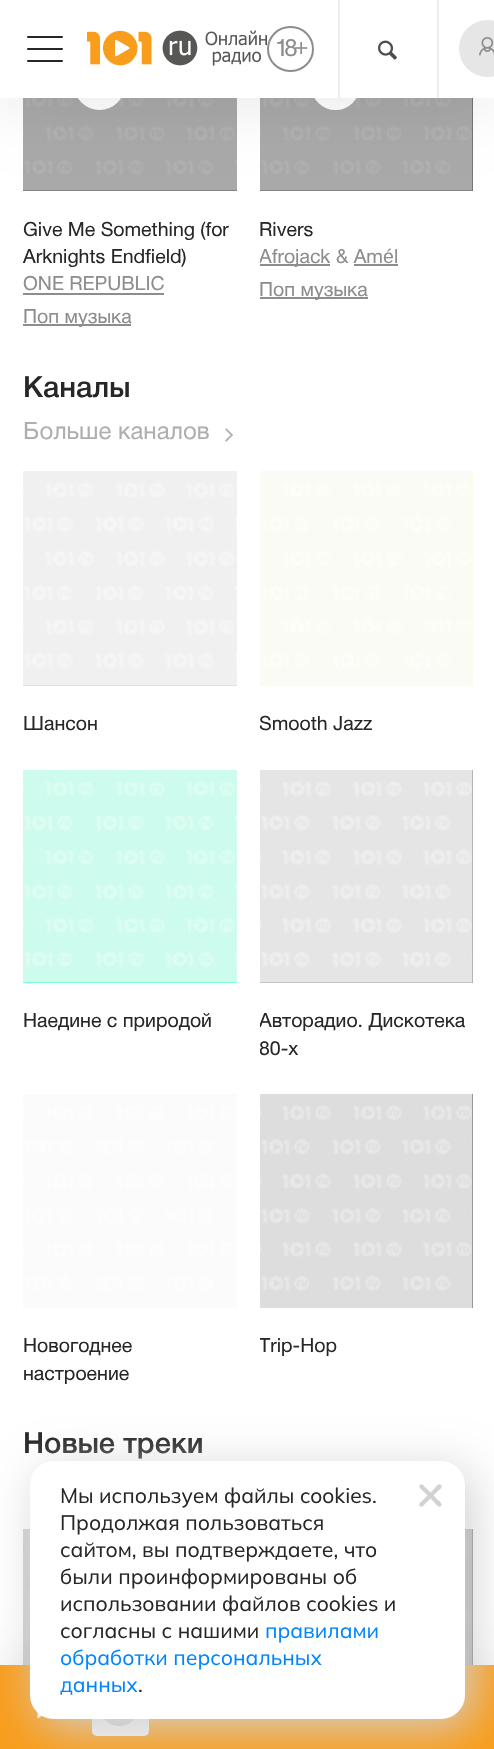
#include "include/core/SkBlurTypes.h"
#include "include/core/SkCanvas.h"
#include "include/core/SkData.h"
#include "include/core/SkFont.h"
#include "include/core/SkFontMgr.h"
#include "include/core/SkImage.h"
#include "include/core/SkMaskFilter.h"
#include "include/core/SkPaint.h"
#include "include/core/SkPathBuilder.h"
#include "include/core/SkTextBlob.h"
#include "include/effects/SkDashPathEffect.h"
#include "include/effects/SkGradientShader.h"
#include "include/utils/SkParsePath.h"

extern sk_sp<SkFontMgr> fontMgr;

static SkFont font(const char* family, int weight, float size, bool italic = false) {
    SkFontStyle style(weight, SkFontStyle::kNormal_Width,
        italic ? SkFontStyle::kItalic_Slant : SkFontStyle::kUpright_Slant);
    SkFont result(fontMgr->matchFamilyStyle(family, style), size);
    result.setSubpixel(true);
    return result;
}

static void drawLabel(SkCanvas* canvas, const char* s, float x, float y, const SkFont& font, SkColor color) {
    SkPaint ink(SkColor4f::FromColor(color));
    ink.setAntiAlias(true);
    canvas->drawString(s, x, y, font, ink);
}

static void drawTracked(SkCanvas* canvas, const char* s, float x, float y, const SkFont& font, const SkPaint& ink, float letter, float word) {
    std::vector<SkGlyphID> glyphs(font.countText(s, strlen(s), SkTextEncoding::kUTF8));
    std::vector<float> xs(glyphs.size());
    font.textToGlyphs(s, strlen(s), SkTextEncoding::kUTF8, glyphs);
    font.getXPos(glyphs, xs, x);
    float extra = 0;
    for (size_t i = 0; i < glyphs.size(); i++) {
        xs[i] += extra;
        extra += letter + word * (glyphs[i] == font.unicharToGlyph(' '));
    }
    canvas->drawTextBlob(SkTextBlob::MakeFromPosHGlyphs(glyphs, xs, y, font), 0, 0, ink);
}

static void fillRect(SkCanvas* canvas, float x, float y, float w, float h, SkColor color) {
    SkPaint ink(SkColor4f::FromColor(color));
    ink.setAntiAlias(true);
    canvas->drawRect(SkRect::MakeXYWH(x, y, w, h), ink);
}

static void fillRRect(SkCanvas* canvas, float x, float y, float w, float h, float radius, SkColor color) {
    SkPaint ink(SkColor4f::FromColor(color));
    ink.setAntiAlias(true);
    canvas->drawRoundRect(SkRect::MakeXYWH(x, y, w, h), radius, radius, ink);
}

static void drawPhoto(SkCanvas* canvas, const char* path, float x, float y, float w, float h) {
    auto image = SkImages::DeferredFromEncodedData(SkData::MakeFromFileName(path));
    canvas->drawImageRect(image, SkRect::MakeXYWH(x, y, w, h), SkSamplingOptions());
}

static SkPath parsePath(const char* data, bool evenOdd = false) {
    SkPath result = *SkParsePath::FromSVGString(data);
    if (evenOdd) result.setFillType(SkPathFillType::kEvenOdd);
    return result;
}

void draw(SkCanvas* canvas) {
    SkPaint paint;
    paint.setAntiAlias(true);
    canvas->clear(0xFFFFFFFF);
    fillRect(canvas, 23, 98, 214, 93, 0xFF616161);
    drawPhoto(canvas, "assets/img4.png", 23, 98, 214, 93);
    paint.setColor(0xFFFFFFFF);
    canvas->drawCircle(99.5f, 84.5f, 25.5f, paint);
    fillRect(canvas, 260, 98, 213, 93, 0xFF616161);
    drawPhoto(canvas, "assets/img5.png", 260, 98, 213, 93);
    fillRRect(canvas, 311, 59, 49, 51, 24.5f, 0xFFFFFFFF);
    paint.setColor(0x12000000);
    paint.setMaskFilter(SkMaskFilter::MakeBlur(kNormal_SkBlurStyle, 26));
    canvas->drawRect(SkRect::MakeXYWH(0, 14, 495, 99), paint);
    paint.setMaskFilter(nullptr);
    fillRect(canvas, 0, 0, 494, 98, 0xFFFFFFFF);
    fillRRect(canvas, 27, 36, 36, 2, 1, 0xFF272727);
    fillRRect(canvas, 27, 48, 36, 2, 1, 0xFF272727);
    fillRRect(canvas, 27, 60, 36, 2, 1, 0xFF272727);
    drawPhoto(canvas, "assets/img1.png", 87, 30, 180, 36);
    paint.setStroke(true);
    paint.setStrokeWidth(2);
    paint.setColor(0xFF8D8D8D);
    canvas->drawRoundRect(SkRect::MakeXYWH(268, 27, 45, 44), 22, 22, paint);
    SkFont font1 = font("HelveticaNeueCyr", 400, 24);
    paint.setStroke(false);
    drawTracked(canvas, "18", 275, 56, font1, paint, -4, 0);
    drawTracked(canvas, "+", 294, 54, font1, paint, -4, 0);
    fillRect(canvas, 338, 0, 2, 98, 0xFFEDEDED);
    drawPhoto(canvas, "assets/img2.png", 378, 40, 19, 20);
    fillRect(canvas, 437, 0, 2, 98, 0xFFEDEDED);
    paint.setColor(0xFFE6E6E6);
    canvas->drawCircle(487.5f, 48.5f, 28.5f, paint);
    drawPhoto(canvas, "assets/img3.png", 479, 37, 15, 19);
    SkFont font2 = font("HelveticaNeueCyr", 400, 19.5f);
    drawLabel(canvas, "Give Me Something (for", 23, 236, font2, 0xFF272727);
    drawLabel(canvas, "Arknights Endfield)", 23, 263, font2, 0xFF272727);
    drawLabel(canvas, "ONE REPUBLIC", 23, 290, font2, 0xFF8D8D8D);
    fillRect(canvas, 23, 293, 141, 2, 0xFF8D8D8D);
    fillRect(canvas, 23, 324, 108, 2, 0xFF8D8D8D);
    drawLabel(canvas, "Поп музыка", 23, 323, font2, 0xFF8D8D8D);
    drawLabel(canvas, "Rivers", 259, 236, font2, 0xFF272727);
    fillRect(canvas, 260, 264, 70, 2, 0xFF8D8D8D);
    canvas->save();
    canvas->clipRect(SkRect::MakeXYWH(260, 245, 213, 28));
    drawLabel(canvas, "Afrojack", 259, 263, font2, 0xFF8D8D8D);
    canvas->restore();
    drawLabel(canvas, "& Am", 336, 263, font2, 0xFF8D8D8D);
    SkFont font3 = font("Liberation Sans", 400, 19.5f);
    drawLabel(canvas, "é", 383, 263, font3, 0xFF8D8D8D);
    fillRect(canvas, 354, 264, 44, 2, 0xFF8D8D8D);
    drawLabel(canvas, "l", 394, 263, font2, 0xFF8D8D8D);
    fillRect(canvas, 260, 297, 108, 2, 0xFF8D8D8D);
    drawLabel(canvas, "Поп музыка", 259, 296, font2, 0xFF8D8D8D);
    SkFont font4 = font("HelveticaNeueCyr", 500, 29.25f);
    drawLabel(canvas, "Каналы", 23, 397, font4, 0xFF272727);
    drawLabel(canvas, "Больше каналов", 23, 439, font1, 0xFFAFAFAF);
    drawPhoto(canvas, "assets/img6.png", 225, 428, 8, 14);
    fillRect(canvas, 23, 471, 214, 215, 0xFFD1D1D1);
    drawPhoto(canvas, "assets/img7.png", 23, 471, 214, 215);
    drawLabel(canvas, "Шансон", 23, 730, font2, 0xFF272727);
    fillRect(canvas, 260, 471, 213, 215, 0xFFFFFDE3);
    drawPhoto(canvas, "assets/img8.png", 260, 471, 213, 215);
    canvas->save();
    canvas->clipRect(SkRect::MakeXYWH(260, 471, 213, 269));
    drawLabel(canvas, "Smooth Jazz", 259, 730, font2, 0xFF272727);
    canvas->restore();
    fillRect(canvas, 23, 770, 214, 213, 0xFF3DFFC2);
    drawPhoto(canvas, "assets/img9.png", 23, 770, 214, 213);
    drawLabel(canvas, "Наедине с природой", 23, 1027, font2, 0xFF272727);
    fillRect(canvas, 260, 770, 213, 213, 0xFFA3A3A3);
    drawPhoto(canvas, "assets/img10.png", 260, 770, 213, 213);
    canvas->save();
    canvas->clipRect(SkRect::MakeXYWH(260, 770, 213, 294));
    drawLabel(canvas, "Авторадио. Дискотека", 259, 1027, font2, 0xFF272727);
    drawLabel(canvas, "80-х", 259, 1055, font2, 0xFF272727);
    canvas->restore();
    drawPhoto(canvas, "assets/img11.png", 23, 1094, 214, 214);
    drawLabel(canvas, "Новогоднее", 23, 1352, font2, 0xFF272727);
    drawLabel(canvas, "настроение", 23, 1380, font2, 0xFF272727);
    fillRect(canvas, 260, 1094, 213, 214, 0xFF808080);
    drawPhoto(canvas, "assets/img12.png", 260, 1094, 213, 214);
    canvas->save();
    canvas->clipRect(SkRect::MakeXYWH(260, 1094, 213, 295));
    drawLabel(canvas, "Trip-Hop", 259, 1352, font2, 0xFF272727);
    canvas->restore();
    drawLabel(canvas, "Новые треки", 23, 1453, font4, 0xFF272727);
    drawPhoto(canvas, "assets/img13.png", 23, 1529, 7, 136);
    fillRect(canvas, 465, 1529, 8, 136, 0xFF616161);
    drawPhoto(canvas, "assets/img14.png", 465, 1529, 8, 136);
    paint.setColor(0x14000000);
    paint.setMaskFilter(SkMaskFilter::MakeBlur(kNormal_SkBlurStyle, 22.5f));
    canvas->drawRect(SkRect::MakeXYWH(0, 1658, 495, 84), paint);
    paint.setMaskFilter(nullptr);
    fillRect(canvas, 0, 1665, 494, 84, 0xFFF99D1C);
    paint.setColor(0xFFFFFFFF);
    canvas->drawPath(parsePath("M37.5 1697V1718.5L56 1707.5Z"), paint);
    fillRRect(canvas, 92, 1679, 57, 57, 5, 0xFFF0F0F0);
    drawPhoto(canvas, "assets/img15.png", 104, 1719, 31, 7);
    paint.setColor(0xFFD2D2D2);
    paint.setMaskFilter(SkMaskFilter::MakeBlur(kNormal_SkBlurStyle, 23));
    canvas->drawRoundRect(SkRect::MakeXYWH(38, 1469, 435, 258), 24, 24, paint);
    paint.setMaskFilter(nullptr);
    fillRRect(canvas, 30, 1461, 435, 258, 24, 0xFFFFFFFF);
    SkFont font5 = font("Mulish", 200, 21);
    drawLabel(canvas, "Мы используем файлы cookies.", 60, 1503, font5, 0xFF272727);
    canvas->drawPath(parsePath("M423 1485L438 1500C439 1501 443.5 1504 441 1506C439 1508.5 436 1504 435 1503L419.5 1487.5C418.5 1485 421.5 1483 423 1485Z"), paint);
    canvas->drawPath(parsePath("M420 1503L435 1488C436 1487 439 1482.5 441 1485C443.5 1487 439 1490 438 1491L422.5 1506.5C420 1507.5 418 1504.5 420 1503Z"), paint);
    drawLabel(canvas, "Продолжая пользоваться", 60, 1530, font5, 0xFF272727);
    drawLabel(canvas, "сайтом, вы подтверждаете, что", 60, 1557, font5, 0xFF272727);
    drawLabel(canvas, "были проинформированы об", 60, 1584, font5, 0xFF272727);
    drawLabel(canvas, "использовании файлов cookies и", 60, 1611, font5, 0xFF272727);
    drawLabel(canvas, "согласны с нашими", 60, 1638, font5, 0xFF272727);
    drawLabel(canvas, "правилами", 265, 1638, font5, 0xFF0085FF);
    drawLabel(canvas, "обработки персональных", 60, 1665, font5, 0xFF0085FF);
    drawLabel(canvas, "данных", 60, 1692, font5, 0xFF0085FF);
    drawLabel(canvas, ".", 138, 1692, font5, 0xFF272727);
}
